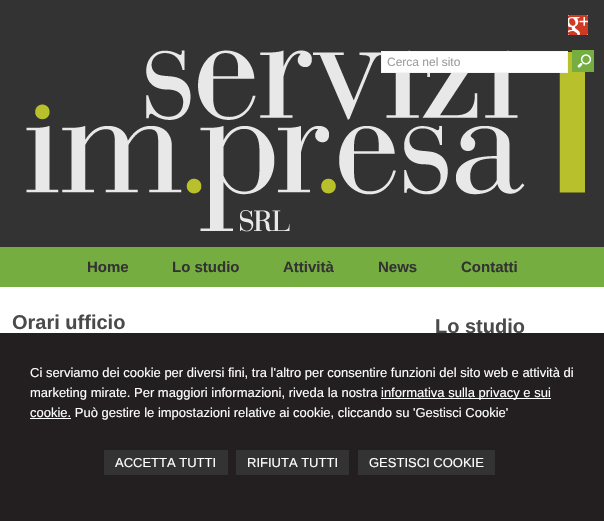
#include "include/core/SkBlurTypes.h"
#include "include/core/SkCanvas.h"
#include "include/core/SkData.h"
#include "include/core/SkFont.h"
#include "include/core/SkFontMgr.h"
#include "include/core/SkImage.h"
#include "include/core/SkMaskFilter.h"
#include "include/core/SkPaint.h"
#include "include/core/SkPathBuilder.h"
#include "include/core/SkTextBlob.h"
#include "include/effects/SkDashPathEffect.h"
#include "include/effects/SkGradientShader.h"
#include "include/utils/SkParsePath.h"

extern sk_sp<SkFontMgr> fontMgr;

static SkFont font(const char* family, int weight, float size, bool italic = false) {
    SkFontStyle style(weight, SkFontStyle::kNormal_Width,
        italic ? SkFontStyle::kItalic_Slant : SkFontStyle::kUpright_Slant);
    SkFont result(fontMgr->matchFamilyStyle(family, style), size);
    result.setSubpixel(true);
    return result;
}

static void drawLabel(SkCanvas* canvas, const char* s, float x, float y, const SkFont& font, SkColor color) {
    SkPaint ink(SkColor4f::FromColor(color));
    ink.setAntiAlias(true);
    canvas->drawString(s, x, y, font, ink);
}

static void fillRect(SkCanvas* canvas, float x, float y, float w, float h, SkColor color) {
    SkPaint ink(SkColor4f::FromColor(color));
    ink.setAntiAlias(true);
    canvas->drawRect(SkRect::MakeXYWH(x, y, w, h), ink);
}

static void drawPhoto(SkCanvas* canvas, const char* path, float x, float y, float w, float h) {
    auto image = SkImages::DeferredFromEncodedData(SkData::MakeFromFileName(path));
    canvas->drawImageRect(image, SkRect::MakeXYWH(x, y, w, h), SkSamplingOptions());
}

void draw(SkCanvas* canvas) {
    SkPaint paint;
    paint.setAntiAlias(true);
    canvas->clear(0xFFFFFFFF);
    fillRect(canvas, 0, 0, 604, 247, 0xFF333333);
    drawPhoto(canvas, "assets/img1.png", 568, 15, 20, 20);
    drawPhoto(canvas, "assets/img2.png", 26, 50, 559, 182);
    fillRect(canvas, 0, 247, 604, 40, 0xFF75AD40);
    paint.setColor(0xFFFFFFFF);
    canvas->drawRect(SkRect::MakeXYWH(381.5f, 51.5f, 186, 21), paint);
    paint.setStroke(true);
    paint.setStrokeWidth(1);
    paint.setColor(0xFFF5F5F5);
    canvas->drawRect(SkRect::MakeXYWH(381.5f, 51.5f, 186, 21), paint);
    SkFont font1 = font("Liberation Sans", 400, 12);
    drawLabel(canvas, "Cerca nel sito", 387, 66, font1, 0xFF9D9D9C);
    fillRect(canvas, 572, 50, 22, 22, 0xFF75AD40);
    drawPhoto(canvas, "assets/img3.png", 577, 54, 14, 14);
    SkFont font2 = font("Liberation Sans", 700, 15);
    drawLabel(canvas, "Home", 87, 272, font2, 0xFF333333);
    drawLabel(canvas, "Lo studio", 172, 272, font2, 0xFF333333);
    drawLabel(canvas, "Attività", 283, 272, font2, 0xFF333333);
    drawLabel(canvas, "News", 378, 272, font2, 0xFF333333);
    drawLabel(canvas, "Contatti", 461, 272, font2, 0xFF333333);
    SkFont font3 = font("Liberation Sans", 700, 20);
    drawLabel(canvas, "Orari ufficio", 12, 329, font3, 0xFF4A4A4A);
    drawLabel(canvas, "Lo studio", 435, 333, font3, 0xFF4A4A4A);
    fillRect(canvas, 0, 333, 604, 188, 0xFF231F20);
    SkFont font4 = font("Liberation Sans", 400, 13);
    drawLabel(canvas, "Ci serviamo dei cookie per diversi fini, tra l'altro per consentire funzioni del sito web e attività di", 30, 377, font4, 0xFFFFFFFF);
    drawLabel(canvas, "marketing mirate. Per maggiori informazioni, riveda la nostra", 30, 397, font4, 0xFFFFFFFF);
    fillRect(canvas, 381, 398, 170, 1, 0xFFFFFFFF);
    drawLabel(canvas, "informativa sulla privacy e sui", 381, 397, font4, 0xFFFFFFFF);
    fillRect(canvas, 30, 418, 41, 1, 0xFFFFFFFF);
    drawLabel(canvas, "cookie. Può gestire le impostazioni relative ai cookie, cliccando su 'Gestisci Cookie'", 30, 417, font4, 0xFFFFFFFF);
    fillRect(canvas, 104, 450, 124, 25, 0xFF333333);
    drawLabel(canvas, "ACCETTA TUTTI", 115, 467, font4, 0xFFFFFFFF);
    fillRect(canvas, 236, 450, 113, 25, 0xFF333333);
    drawLabel(canvas, "RIFIUTA TUTTI", 247, 467, font4, 0xFFFFFFFF);
    fillRect(canvas, 358, 450, 137, 25, 0xFF333333);
    drawLabel(canvas, "GESTISCI COOKIE", 369, 467, font4, 0xFFFFFFFF);
}
